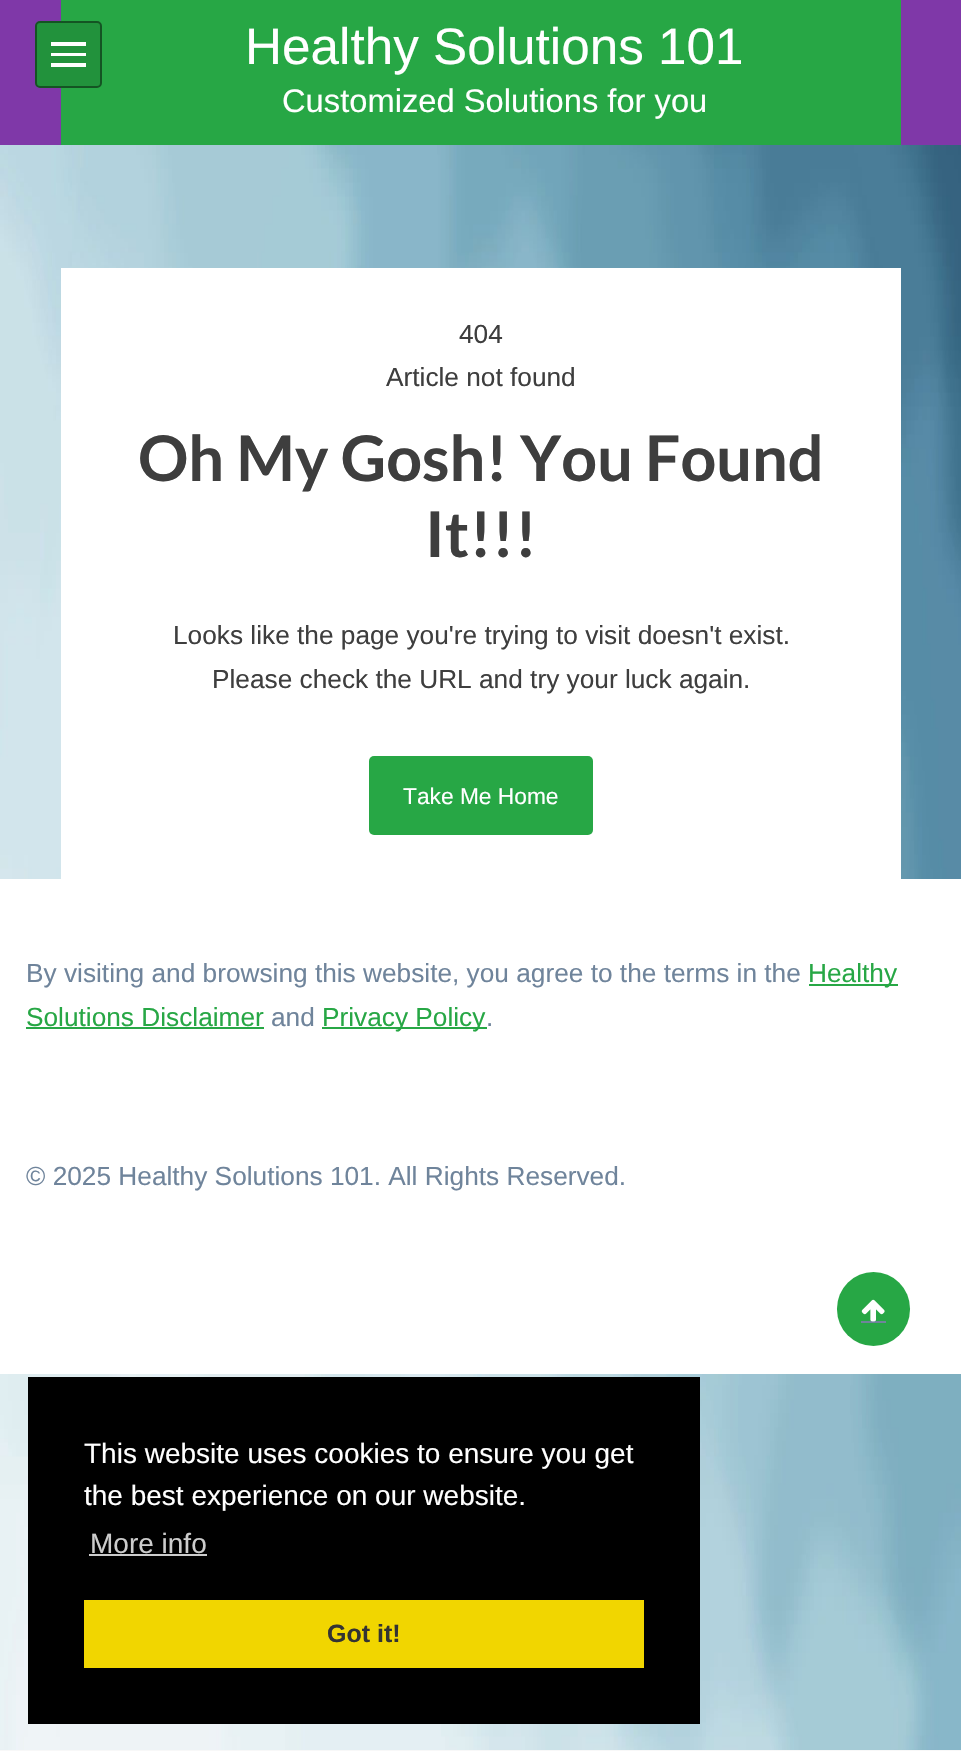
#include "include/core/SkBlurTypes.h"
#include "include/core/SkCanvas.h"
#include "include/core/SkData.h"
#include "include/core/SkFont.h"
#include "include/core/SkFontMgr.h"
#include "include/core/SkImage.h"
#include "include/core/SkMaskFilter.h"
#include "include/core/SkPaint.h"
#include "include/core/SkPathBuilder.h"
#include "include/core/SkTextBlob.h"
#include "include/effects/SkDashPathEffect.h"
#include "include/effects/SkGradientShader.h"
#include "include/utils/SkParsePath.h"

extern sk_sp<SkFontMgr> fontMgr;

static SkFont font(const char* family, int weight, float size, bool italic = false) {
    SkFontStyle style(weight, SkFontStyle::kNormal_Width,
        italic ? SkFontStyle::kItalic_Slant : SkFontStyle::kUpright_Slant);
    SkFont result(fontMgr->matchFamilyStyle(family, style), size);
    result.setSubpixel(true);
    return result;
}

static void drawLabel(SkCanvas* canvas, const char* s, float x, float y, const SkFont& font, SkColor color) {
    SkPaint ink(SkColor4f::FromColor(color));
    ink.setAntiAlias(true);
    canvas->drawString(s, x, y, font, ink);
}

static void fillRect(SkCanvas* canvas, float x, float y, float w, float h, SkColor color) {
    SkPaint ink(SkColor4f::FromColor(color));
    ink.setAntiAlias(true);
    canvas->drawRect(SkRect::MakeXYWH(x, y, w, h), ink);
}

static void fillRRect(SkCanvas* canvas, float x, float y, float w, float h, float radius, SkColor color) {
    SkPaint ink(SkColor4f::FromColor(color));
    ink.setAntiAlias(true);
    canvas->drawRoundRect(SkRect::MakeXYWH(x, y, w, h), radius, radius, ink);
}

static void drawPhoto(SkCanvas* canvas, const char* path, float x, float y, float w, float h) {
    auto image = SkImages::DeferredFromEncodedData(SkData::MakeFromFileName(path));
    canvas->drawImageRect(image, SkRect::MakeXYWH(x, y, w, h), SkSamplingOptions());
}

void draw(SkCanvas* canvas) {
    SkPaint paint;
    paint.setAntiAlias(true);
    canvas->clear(0xFFF8F8F8);
    drawPhoto(canvas, "assets/img1.png", 0, 145, 961, 1605);
    fillRect(canvas, 0, 0, 961, 145, 0xFF7F38A8);
    fillRect(canvas, 61, 0, 840, 145, 0xFF27A745);
    paint.setColor(0xFF22923C);
    canvas->drawRoundRect(SkRect::MakeXYWH(36, 22, 65, 65), 4, 4, paint);
    paint.setStroke(true);
    paint.setStrokeWidth(2);
    paint.setColor(0xFF145423);
    canvas->drawRoundRect(SkRect::MakeXYWH(36, 22, 65, 65), 4, 4, paint);
    fillRect(canvas, 51, 42, 35, 4, 0xFFFFFFFF);
    fillRect(canvas, 51, 53, 35, 3, 0xFFFFFFFF);
    fillRect(canvas, 51, 63, 35, 4, 0xFFFFFFFF);
    SkFont font1 = font("Liberation Sans", 400, 51.25f);
    drawLabel(canvas, "Healthy Solutions 101", 245, 64, font1, 0xFFFFFFFF);
    SkFont font2 = font("Liberation Sans", 400, 32.7f);
    drawLabel(canvas, "Customized Solutions for you", 282, 112, font2, 0xFFFFFFFF);
    fillRect(canvas, 61, 268, 840, 611, 0xFFFFFFFF);
    SkFont font3 = font("Liberation Sans", 400, 26.25f);
    drawLabel(canvas, "404", 459, 343, font3, 0xFF3E3E3E);
    drawLabel(canvas, "Article not found", 386, 386, font3, 0xFF3E3E3E);
    SkFont font4 = font("Lato", 700, 63);
    drawLabel(canvas, "Oh My Gosh! You Found", 138, 481, font4, 0xFF3E3E3E);
    drawLabel(canvas, "It!!!", 425, 557, font4, 0xFF3E3E3E);
    drawLabel(canvas, "Looks like the page you're trying to visit doesn't exist.", 173, 644, font3, 0xFF3E3E3E);
    drawLabel(canvas, "Please check the URL and try your luck again.", 212, 688, font3, 0xFF3E3E3E);
    fillRRect(canvas, 369, 756, 224, 79, 5, 0xFF27A745);
    SkFont font5 = font("Liberation Sans", 400, 22.75f);
    drawLabel(canvas, "Take Me Home", 403, 804, font5, 0xFFFFFFFF);
    fillRect(canvas, 0, 879, 961, 495, 0xFFFFFFFF);
    drawLabel(canvas, "By visiting and browsing this website, you agree to the terms in the", 26, 982, font3, 0xFF6F849B);
    fillRect(canvas, 809, 984, 89, 2, 0xFF27A745);
    drawLabel(canvas, "Healthy", 808, 982, font3, 0xFF27A745);
    drawLabel(canvas, "Solutions Disclaimer", 26, 1026, font3, 0xFF27A745);
    fillRect(canvas, 26, 1027, 238, 2, 0xFF27A745);
    drawLabel(canvas, "and", 271, 1026, font3, 0xFF6F849B);
    fillRect(canvas, 322, 1027, 165, 2, 0xFF27A745);
    drawLabel(canvas, "Privacy Policy", 322, 1026, font3, 0xFF27A745);
    drawLabel(canvas, ".", 486, 1026, font3, 0xFF6F849B);
    drawLabel(canvas, "© 2025 Healthy Solutions 101. All Rights Reserved.", 26, 1185, font3, 0xFF6F849B);
    fillRRect(canvas, 837, 1272, 73, 74, 36.5f, 0xFF27A745);
    fillRect(canvas, 861, 1321, 25, 2, 0xFF6F849B);
    drawPhoto(canvas, "assets/img2.png", 861, 1299, 24, 23);
    fillRect(canvas, 28, 1377, 672, 347, 0xFF000000);
    SkFont font6 = font("Liberation Sans", 400, 28);
    drawLabel(canvas, "This website uses cookies to ensure you get", 84, 1463, font6, 0xFFFFFFFF);
    drawLabel(canvas, "the best experience on our website.", 84, 1505, font6, 0xFFFFFFFF);
    drawLabel(canvas, "More info", 90, 1553, font6, 0xFFCCCCCC);
    fillRect(canvas, 89, 1554, 118, 2, 0xFFCCCCCC);
    fillRect(canvas, 84, 1600, 560, 68, 0xFFF1D600);
    SkFont font7 = font("Liberation Sans", 700, 25);
    drawLabel(canvas, "Got it!", 327, 1642, font7, 0xFF333333);
}
